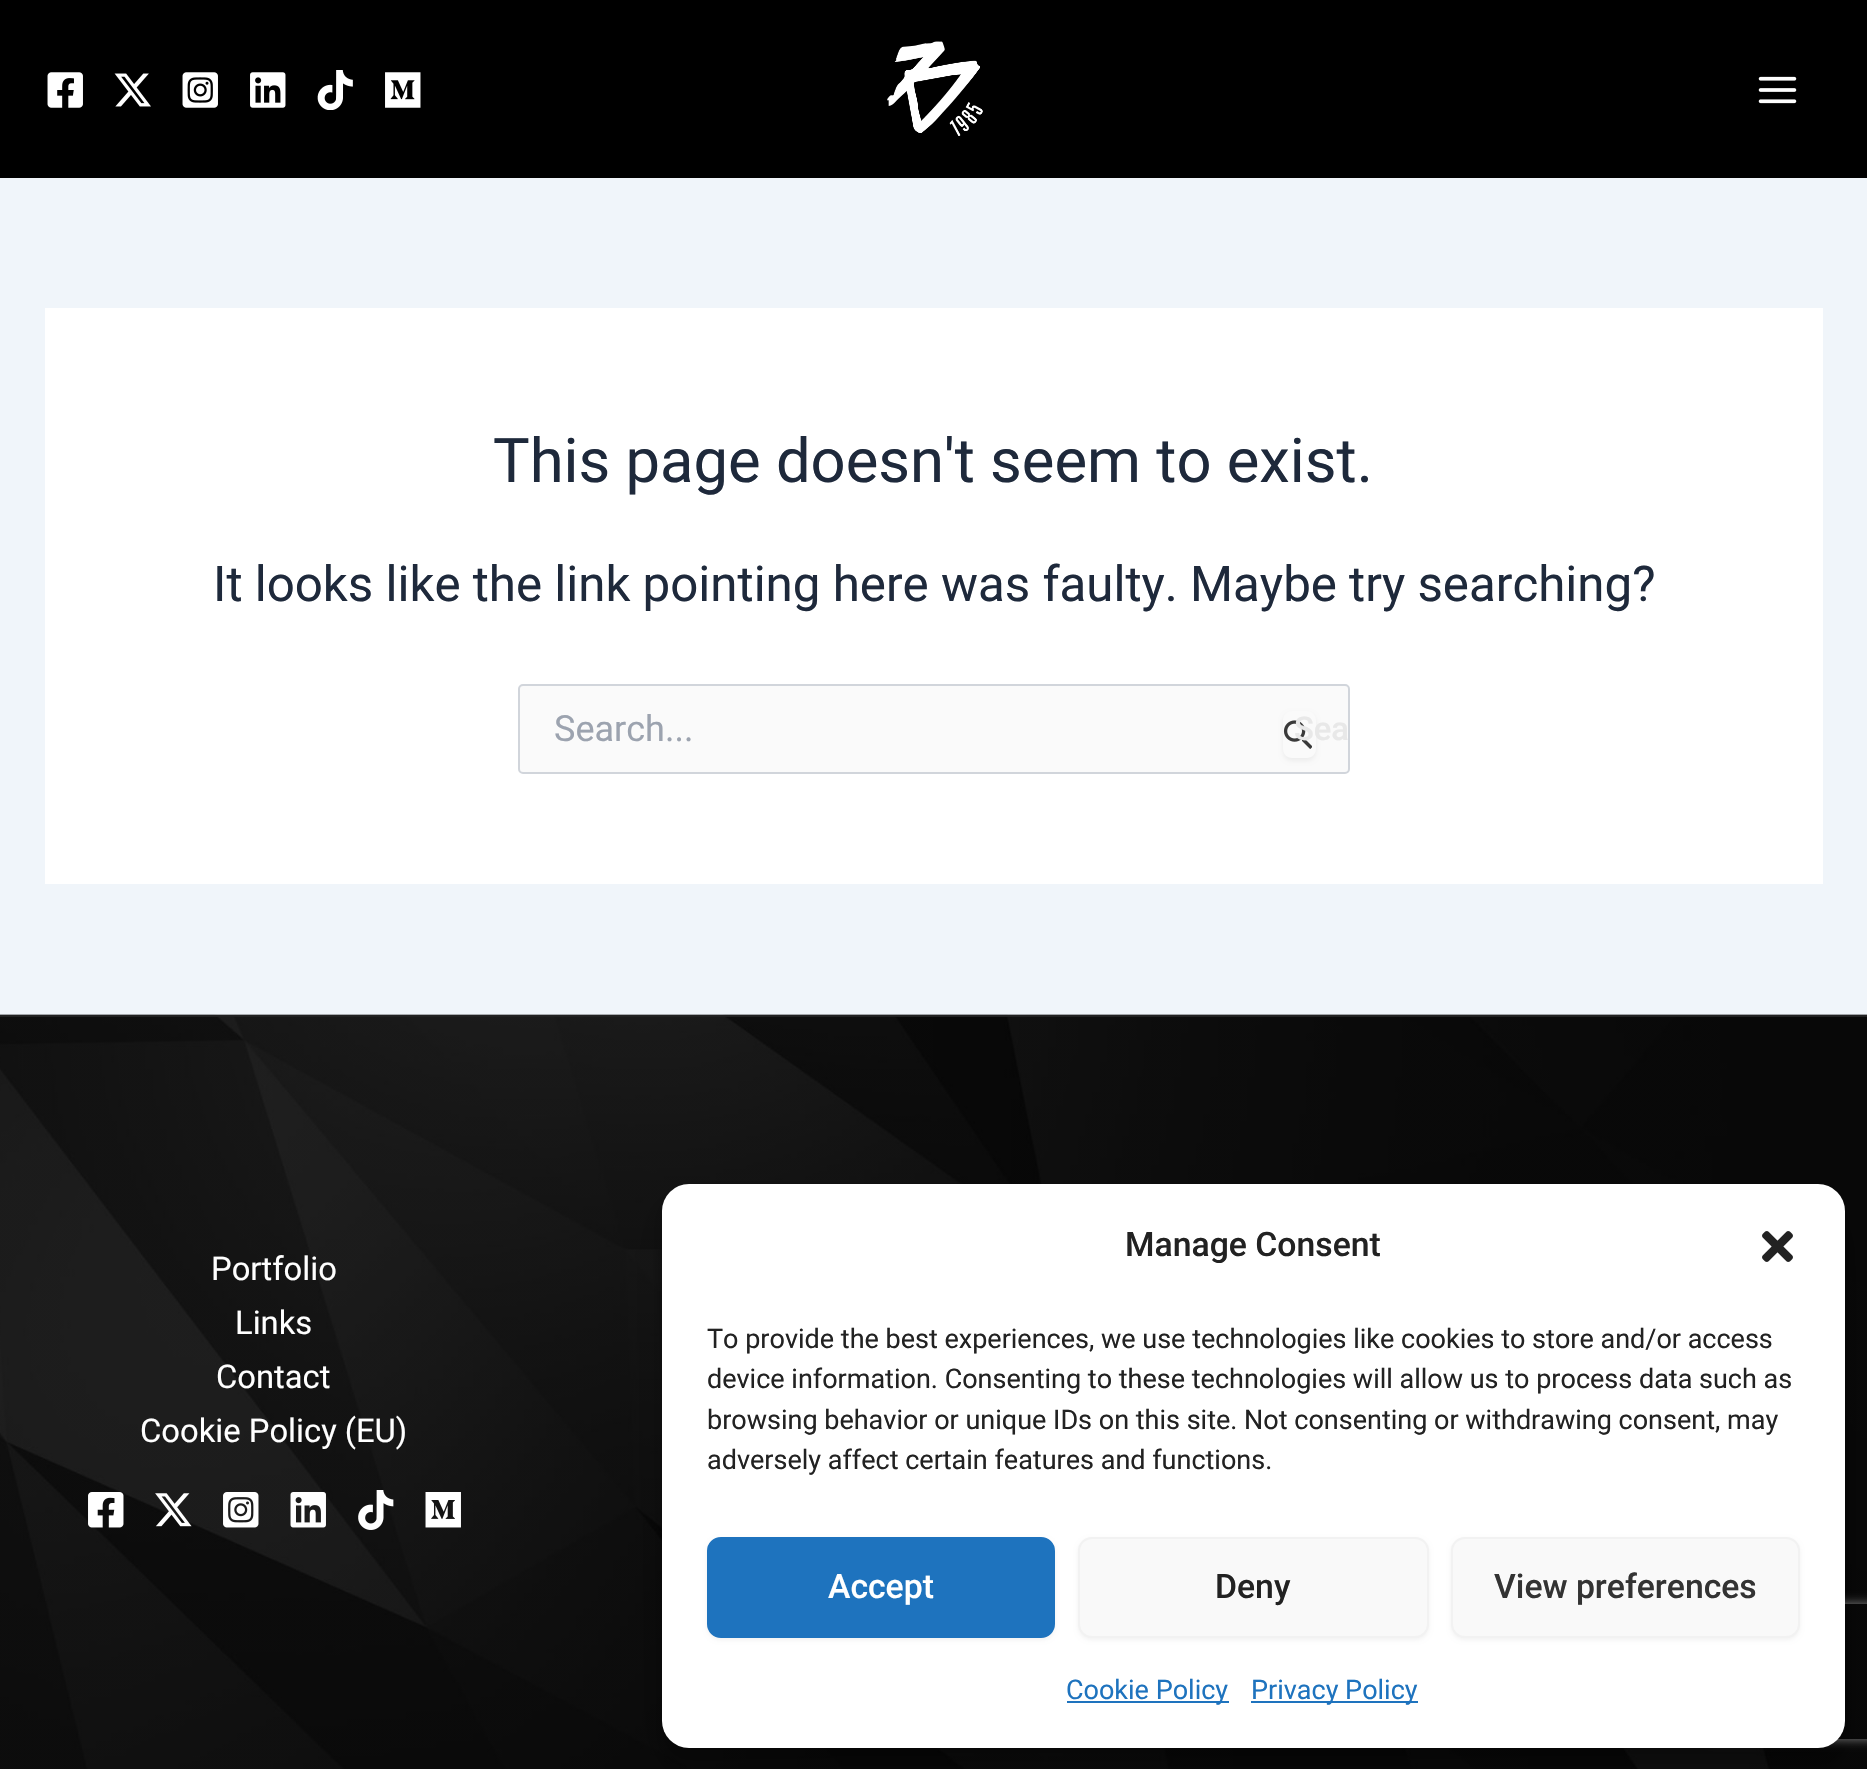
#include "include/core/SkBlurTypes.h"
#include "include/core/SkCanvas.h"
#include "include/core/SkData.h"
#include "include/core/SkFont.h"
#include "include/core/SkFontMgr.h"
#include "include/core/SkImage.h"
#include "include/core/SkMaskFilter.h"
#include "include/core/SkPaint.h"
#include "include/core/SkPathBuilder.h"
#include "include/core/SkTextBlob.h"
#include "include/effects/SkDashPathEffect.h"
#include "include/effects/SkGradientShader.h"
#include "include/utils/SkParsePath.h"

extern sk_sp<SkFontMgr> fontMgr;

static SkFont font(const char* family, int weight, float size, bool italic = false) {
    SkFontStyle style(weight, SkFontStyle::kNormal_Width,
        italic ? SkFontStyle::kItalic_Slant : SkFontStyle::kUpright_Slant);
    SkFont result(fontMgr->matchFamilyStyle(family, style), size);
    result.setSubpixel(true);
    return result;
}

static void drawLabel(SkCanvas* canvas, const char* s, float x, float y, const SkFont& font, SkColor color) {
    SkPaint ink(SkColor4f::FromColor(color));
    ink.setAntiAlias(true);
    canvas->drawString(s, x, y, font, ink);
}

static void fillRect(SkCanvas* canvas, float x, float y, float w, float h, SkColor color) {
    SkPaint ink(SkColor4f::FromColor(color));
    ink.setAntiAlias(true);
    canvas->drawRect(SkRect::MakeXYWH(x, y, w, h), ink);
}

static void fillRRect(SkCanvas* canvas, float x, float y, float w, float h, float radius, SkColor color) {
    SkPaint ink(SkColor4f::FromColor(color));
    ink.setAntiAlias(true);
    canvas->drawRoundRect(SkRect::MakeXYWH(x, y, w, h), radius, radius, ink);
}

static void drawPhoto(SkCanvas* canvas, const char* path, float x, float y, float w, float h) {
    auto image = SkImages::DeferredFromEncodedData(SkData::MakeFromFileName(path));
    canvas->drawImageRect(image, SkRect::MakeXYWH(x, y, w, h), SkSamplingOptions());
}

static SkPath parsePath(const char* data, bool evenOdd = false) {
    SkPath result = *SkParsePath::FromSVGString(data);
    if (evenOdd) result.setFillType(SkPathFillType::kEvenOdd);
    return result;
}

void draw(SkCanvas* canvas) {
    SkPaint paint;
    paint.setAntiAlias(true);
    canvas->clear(0xFFF0F5FA);
    fillRect(canvas, 0, 0, 1867, 178, 0xFF000000);
    drawPhoto(canvas, "assets/img1.png", 47, 72, 36, 36);
    drawPhoto(canvas, "assets/img2.png", 114, 73, 37, 34);
    drawPhoto(canvas, "assets/img3.png", 182, 72, 36, 36);
    drawPhoto(canvas, "assets/img4.png", 250, 72, 36, 36);
    drawPhoto(canvas, "assets/img5.png", 317, 70, 36, 40);
    drawPhoto(canvas, "assets/img6.png", 385, 72, 36, 36);
    drawPhoto(canvas, "assets/img7.png", 887, 41, 96, 95);
    drawPhoto(canvas, "assets/img8.png", 1758, 76, 39, 28);
    fillRect(canvas, 45, 308, 1778, 576, 0xFFFFFFFF);
    SkFont font1 = font("Roboto", 400, 61.5f);
    drawLabel(canvas, "This page doesn't seem to exist.", 493, 482, font1, 0xFF1E293B);
    SkFont font2 = font("Roboto", 400, 49.25f);
    drawLabel(canvas, "It looks like the link pointing here was faulty. Maybe try searching?", 213, 601, font2, 0xFF1E293B);
    paint.setColor(0xFFFAFAFA);
    canvas->drawRoundRect(SkRect::MakeXYWH(519, 685, 830, 88), 4, 4, paint);
    paint.setStroke(true);
    paint.setStrokeWidth(2);
    paint.setColor(0xFFD1D5DB);
    canvas->drawRoundRect(SkRect::MakeXYWH(519, 685, 830, 88), 4, 4, paint);
    SkFont font3 = font("Roboto", 400, 36);
    drawLabel(canvas, "Search...", 554, 741, font3, 0xFF9CA3AF);
    canvas->save();
    canvas->clipPath(parsePath("M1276 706H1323V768H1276ZM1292 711H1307C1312 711 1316 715 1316 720V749C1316 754 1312 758 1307 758H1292C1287 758 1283 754 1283 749V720C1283 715 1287 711 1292 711Z", true), true);
    paint.setStroke(false);
    paint.setColor(0x0D000000);
    paint.setMaskFilter(SkMaskFilter::MakeBlur(kNormal_SkBlurStyle, 2));
    canvas->drawRoundRect(SkRect::MakeXYWH(1283, 713, 33, 48), 9, 9, paint);
    paint.setMaskFilter(nullptr);
    canvas->restore();
    drawPhoto(canvas, "assets/img9.png", 1283, 720, 29, 29);
    SkFont font4 = font("Roboto", 500, 32.75f);
    drawLabel(canvas, "Sea", 1294, 740, font4, 0xFFE8E8E8);
    drawPhoto(canvas, "assets/img10.png", 0, 1014, 1867, 755);
    fillRect(canvas, 0, 1015, 1867, 2, 0xFF212121);
    SkFont font5 = font("Roboto", 400, 32.75f);
    drawLabel(canvas, "Portfolio", 211, 1280, font5, 0xFFFFFFFF);
    drawLabel(canvas, "Links", 235, 1334, font5, 0xFFFFFFFF);
    drawLabel(canvas, "Contact", 216, 1388, font5, 0xFFFFFFFF);
    drawLabel(canvas, "Cookie Policy (EU)", 140, 1442, font5, 0xFFFFFFFF);
    drawPhoto(canvas, "assets/img11.png", 88, 1492, 36, 36);
    drawPhoto(canvas, "assets/img12.png", 155, 1493, 37, 34);
    drawPhoto(canvas, "assets/img13.png", 223, 1492, 36, 36);
    drawPhoto(canvas, "assets/img14.png", 290, 1492, 36, 36);
    drawPhoto(canvas, "assets/img15.png", 358, 1490, 36, 40);
    drawPhoto(canvas, "assets/img16.png", 425, 1492, 36, 36);
    paint.setColor(0x3B000000);
    paint.setMaskFilter(SkMaskFilter::MakeBlur(kNormal_SkBlurStyle, 7));
    canvas->drawRoundRect(SkRect::MakeXYWH(662, 1197, 1183, 565), 27, 27, paint);
    paint.setMaskFilter(nullptr);
    paint.setColor(0x30000000);
    paint.setMaskFilter(SkMaskFilter::MakeBlur(kNormal_SkBlurStyle, 22.5f));
    canvas->drawRoundRect(SkRect::MakeXYWH(662, 1206, 1183, 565), 27, 27, paint);
    paint.setMaskFilter(nullptr);
    canvas->save();
    canvas->clipPath(parsePath("M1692 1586H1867V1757H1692ZM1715 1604H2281C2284 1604 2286 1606 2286 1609V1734C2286 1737 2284 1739 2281 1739H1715C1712 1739 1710 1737 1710 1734V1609C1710 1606 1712 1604 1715 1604Z", true), true);
    paint.setColor(0xFF808080);
    paint.setMaskFilter(SkMaskFilter::MakeBlur(kNormal_SkBlurStyle, 5.5f));
    canvas->drawRoundRect(SkRect::MakeXYWH(1710, 1604, 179, 135), 5, 5, paint);
    paint.setMaskFilter(nullptr);
    canvas->restore();
    fillRRect(canvas, 662, 1184, 1183, 564, 27, 0xFFFFFFFF);
    SkFont font6 = font("Roboto", 500, 33.75f);
    drawLabel(canvas, "Manage Consent", 1125, 1256, font6, 0xFF222222);
    drawPhoto(canvas, "assets/img17.png", 1762, 1231, 31, 31);
    SkFont font7 = font("Roboto", 400, 27);
    drawLabel(canvas, "To provide the best experiences, we use technologies like cookies to store and/or access", 707, 1348, font7, 0xFF222222);
    drawLabel(canvas, "device information. Consenting to these technologies will allow us to process data such as", 707, 1388, font7, 0xFF222222);
    drawLabel(canvas, "browsing behavior or unique IDs on this site. Not consenting or withdrawing consent, may", 707, 1429, font7, 0xFF222222);
    drawLabel(canvas, "adversely affect certain features and functions.", 707, 1469, font7, 0xFF222222);
    paint.setColor(0x0D000000);
    paint.setMaskFilter(SkMaskFilter::MakeBlur(kNormal_SkBlurStyle, 2));
    canvas->drawRoundRect(SkRect::MakeXYWH(707, 1539, 348, 101), 14, 14, paint);
    paint.setMaskFilter(nullptr);
    paint.setColor(0xFF1E73BE);
    canvas->drawRoundRect(SkRect::MakeXYWH(708, 1538, 346, 99), 13, 13, paint);
    paint.setStroke(true);
    canvas->drawRoundRect(SkRect::MakeXYWH(708, 1538, 346, 99), 13, 13, paint);
    drawLabel(canvas, "Accept", 828, 1598, font6, 0xFFFFFFFF);
    paint.setStroke(false);
    paint.setColor(0x0D000000);
    paint.setMaskFilter(SkMaskFilter::MakeBlur(kNormal_SkBlurStyle, 2));
    canvas->drawRoundRect(SkRect::MakeXYWH(1078, 1539, 351, 101), 14, 14, paint);
    paint.setMaskFilter(nullptr);
    paint.setColor(0xFFF9F9F9);
    canvas->drawRoundRect(SkRect::MakeXYWH(1079, 1538, 349, 99), 13, 13, paint);
    paint.setStroke(true);
    paint.setColor(0xFFF2F2F2);
    canvas->drawRoundRect(SkRect::MakeXYWH(1079, 1538, 349, 99), 13, 13, paint);
    drawLabel(canvas, "Deny", 1215, 1598, font6, 0xFF222222);
    paint.setStroke(false);
    paint.setColor(0x0D000000);
    paint.setMaskFilter(SkMaskFilter::MakeBlur(kNormal_SkBlurStyle, 2));
    canvas->drawRoundRect(SkRect::MakeXYWH(1451, 1539, 349, 101), 14, 14, paint);
    paint.setMaskFilter(nullptr);
    paint.setColor(0xFFF9F9F9);
    canvas->drawRoundRect(SkRect::MakeXYWH(1452, 1538, 347, 99), 13, 13, paint);
    paint.setStroke(true);
    paint.setColor(0xFFF2F2F2);
    canvas->drawRoundRect(SkRect::MakeXYWH(1452, 1538, 347, 99), 13, 13, paint);
    drawLabel(canvas, "View preferences", 1494, 1598, font6, 0xFF333333);
    fillRect(canvas, 1067, 1701, 162, 2, 0xFF1E73BE);
    drawLabel(canvas, "Cookie Policy", 1066, 1699, font7, 0xFF1E73BE);
    fillRect(canvas, 1251, 1701, 167, 2, 0xFF1E73BE);
    drawLabel(canvas, "Privacy Policy", 1251, 1699, font7, 0xFF1E73BE);
}
